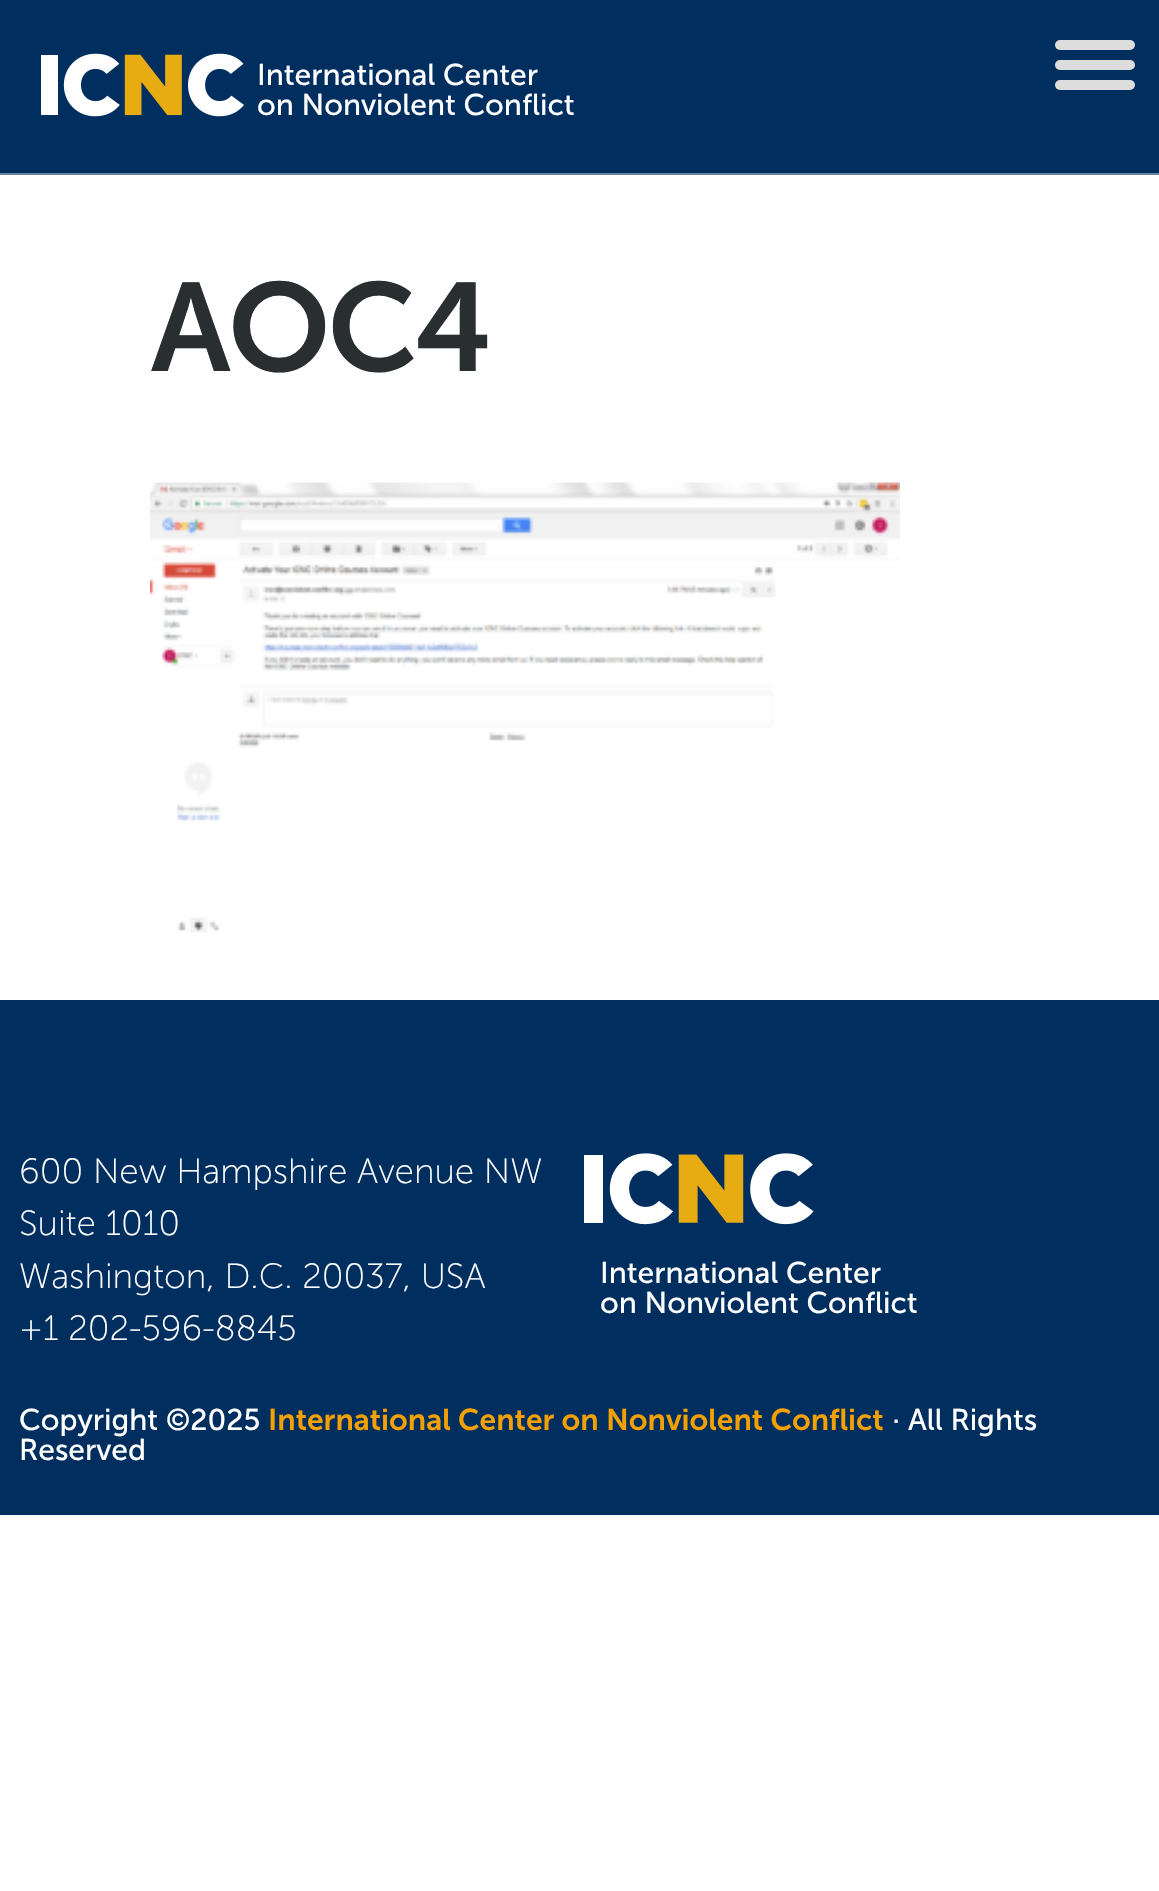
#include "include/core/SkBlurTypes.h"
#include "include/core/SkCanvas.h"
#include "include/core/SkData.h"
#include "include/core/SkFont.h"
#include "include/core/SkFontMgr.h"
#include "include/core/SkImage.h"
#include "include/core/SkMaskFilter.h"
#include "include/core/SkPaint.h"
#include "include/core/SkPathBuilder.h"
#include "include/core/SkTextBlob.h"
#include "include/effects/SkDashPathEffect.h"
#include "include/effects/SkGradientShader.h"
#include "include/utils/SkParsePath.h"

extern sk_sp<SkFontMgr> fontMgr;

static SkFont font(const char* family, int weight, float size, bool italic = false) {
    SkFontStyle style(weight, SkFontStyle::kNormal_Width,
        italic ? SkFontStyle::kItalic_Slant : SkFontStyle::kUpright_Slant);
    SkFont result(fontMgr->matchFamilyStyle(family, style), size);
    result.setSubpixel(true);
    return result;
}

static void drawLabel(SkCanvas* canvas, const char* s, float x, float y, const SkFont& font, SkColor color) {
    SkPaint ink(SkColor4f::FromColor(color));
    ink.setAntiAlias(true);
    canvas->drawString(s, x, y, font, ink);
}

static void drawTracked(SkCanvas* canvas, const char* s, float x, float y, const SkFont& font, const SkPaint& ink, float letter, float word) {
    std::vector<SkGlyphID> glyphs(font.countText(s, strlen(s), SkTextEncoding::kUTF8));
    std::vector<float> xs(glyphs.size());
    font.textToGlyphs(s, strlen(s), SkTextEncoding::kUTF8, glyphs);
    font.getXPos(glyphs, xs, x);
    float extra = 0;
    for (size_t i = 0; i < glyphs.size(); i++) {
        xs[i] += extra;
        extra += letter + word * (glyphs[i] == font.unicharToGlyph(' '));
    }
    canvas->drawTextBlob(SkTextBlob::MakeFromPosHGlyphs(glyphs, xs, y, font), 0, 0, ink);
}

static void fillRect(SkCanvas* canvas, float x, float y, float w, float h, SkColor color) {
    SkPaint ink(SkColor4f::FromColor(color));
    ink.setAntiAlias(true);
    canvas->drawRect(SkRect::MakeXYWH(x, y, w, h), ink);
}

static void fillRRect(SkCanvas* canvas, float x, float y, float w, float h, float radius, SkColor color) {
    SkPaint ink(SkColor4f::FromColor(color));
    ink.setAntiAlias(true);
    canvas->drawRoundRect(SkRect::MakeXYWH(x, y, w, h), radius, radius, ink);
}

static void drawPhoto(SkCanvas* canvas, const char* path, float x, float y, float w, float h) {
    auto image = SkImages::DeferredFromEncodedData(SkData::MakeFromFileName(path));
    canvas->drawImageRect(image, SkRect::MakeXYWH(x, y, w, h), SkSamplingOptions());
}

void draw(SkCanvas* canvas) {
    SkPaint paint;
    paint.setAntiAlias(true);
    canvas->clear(0xFFFFFFFF);
    fillRect(canvas, 0, 0, 1159, 173, 0xFF002E5F);
    fillRect(canvas, 0, 173, 1159, 2, 0xFF66829F);
    drawPhoto(canvas, "assets/img1.png", 41, 53, 203, 64);
    SkFont font1 = font("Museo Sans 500", 400, 30);
    drawLabel(canvas, "International Center", 257, 85, font1, 0xFFFFFFFF);
    drawLabel(canvas, "on Nonviolent Conflict", 257, 115, font1, 0xFFFFFFFF);
    fillRRect(canvas, 1055, 40, 80, 10, 5, 0xFFDDDDDD);
    fillRRect(canvas, 1055, 60, 80, 10, 5, 0xFFDDDDDD);
    fillRRect(canvas, 1055, 80, 80, 10, 5, 0xFFDDDDDD);
    SkFont font2 = font("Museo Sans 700", 600, 125);
    paint.setColor(0xFF292E31);
    drawTracked(canvas, "AOC4", 151, 371, font2, paint, -2.5f, 0);
    drawPhoto(canvas, "assets/img2.png", 150, 482, 750, 451);
    fillRect(canvas, 0, 1000, 1159, 515, 0xFF002E5F);
    SkFont font3 = font("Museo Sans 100", 300, 35);
    drawLabel(canvas, "600 New Hampshire Avenue NW", 19, 1183, font3, 0xFFFFFFFF);
    drawLabel(canvas, "Suite 1010", 19, 1235, font3, 0xFFFFFFFF);
    drawLabel(canvas, "Washington, D.C. 20037, USA", 19, 1288, font3, 0xFFFFFFFF);
    drawLabel(canvas, "+1 202-596-8845", 19, 1340, font3, 0xFFFFFFFF);
    drawPhoto(canvas, "assets/img3.png", 584, 1153, 230, 72);
    drawLabel(canvas, "International Center", 600, 1283, font1, 0xFFFFFFFF);
    drawLabel(canvas, "on Nonviolent Conflict", 600, 1313, font1, 0xFFFFFFFF);
    drawLabel(canvas, "Copyright ©2025", 19, 1430, font1, 0xFFFFFFFF);
    SkFont font4 = font("Museo Sans 700", 600, 30);
    drawLabel(canvas, "International Center on Nonviolent Conflict", 268, 1430, font4, 0xFFF3A000);
    drawLabel(canvas, "· All Rights", 892, 1430, font1, 0xFFFFFFFF);
    drawLabel(canvas, "Reserved", 19, 1460, font1, 0xFFFFFFFF);
}
